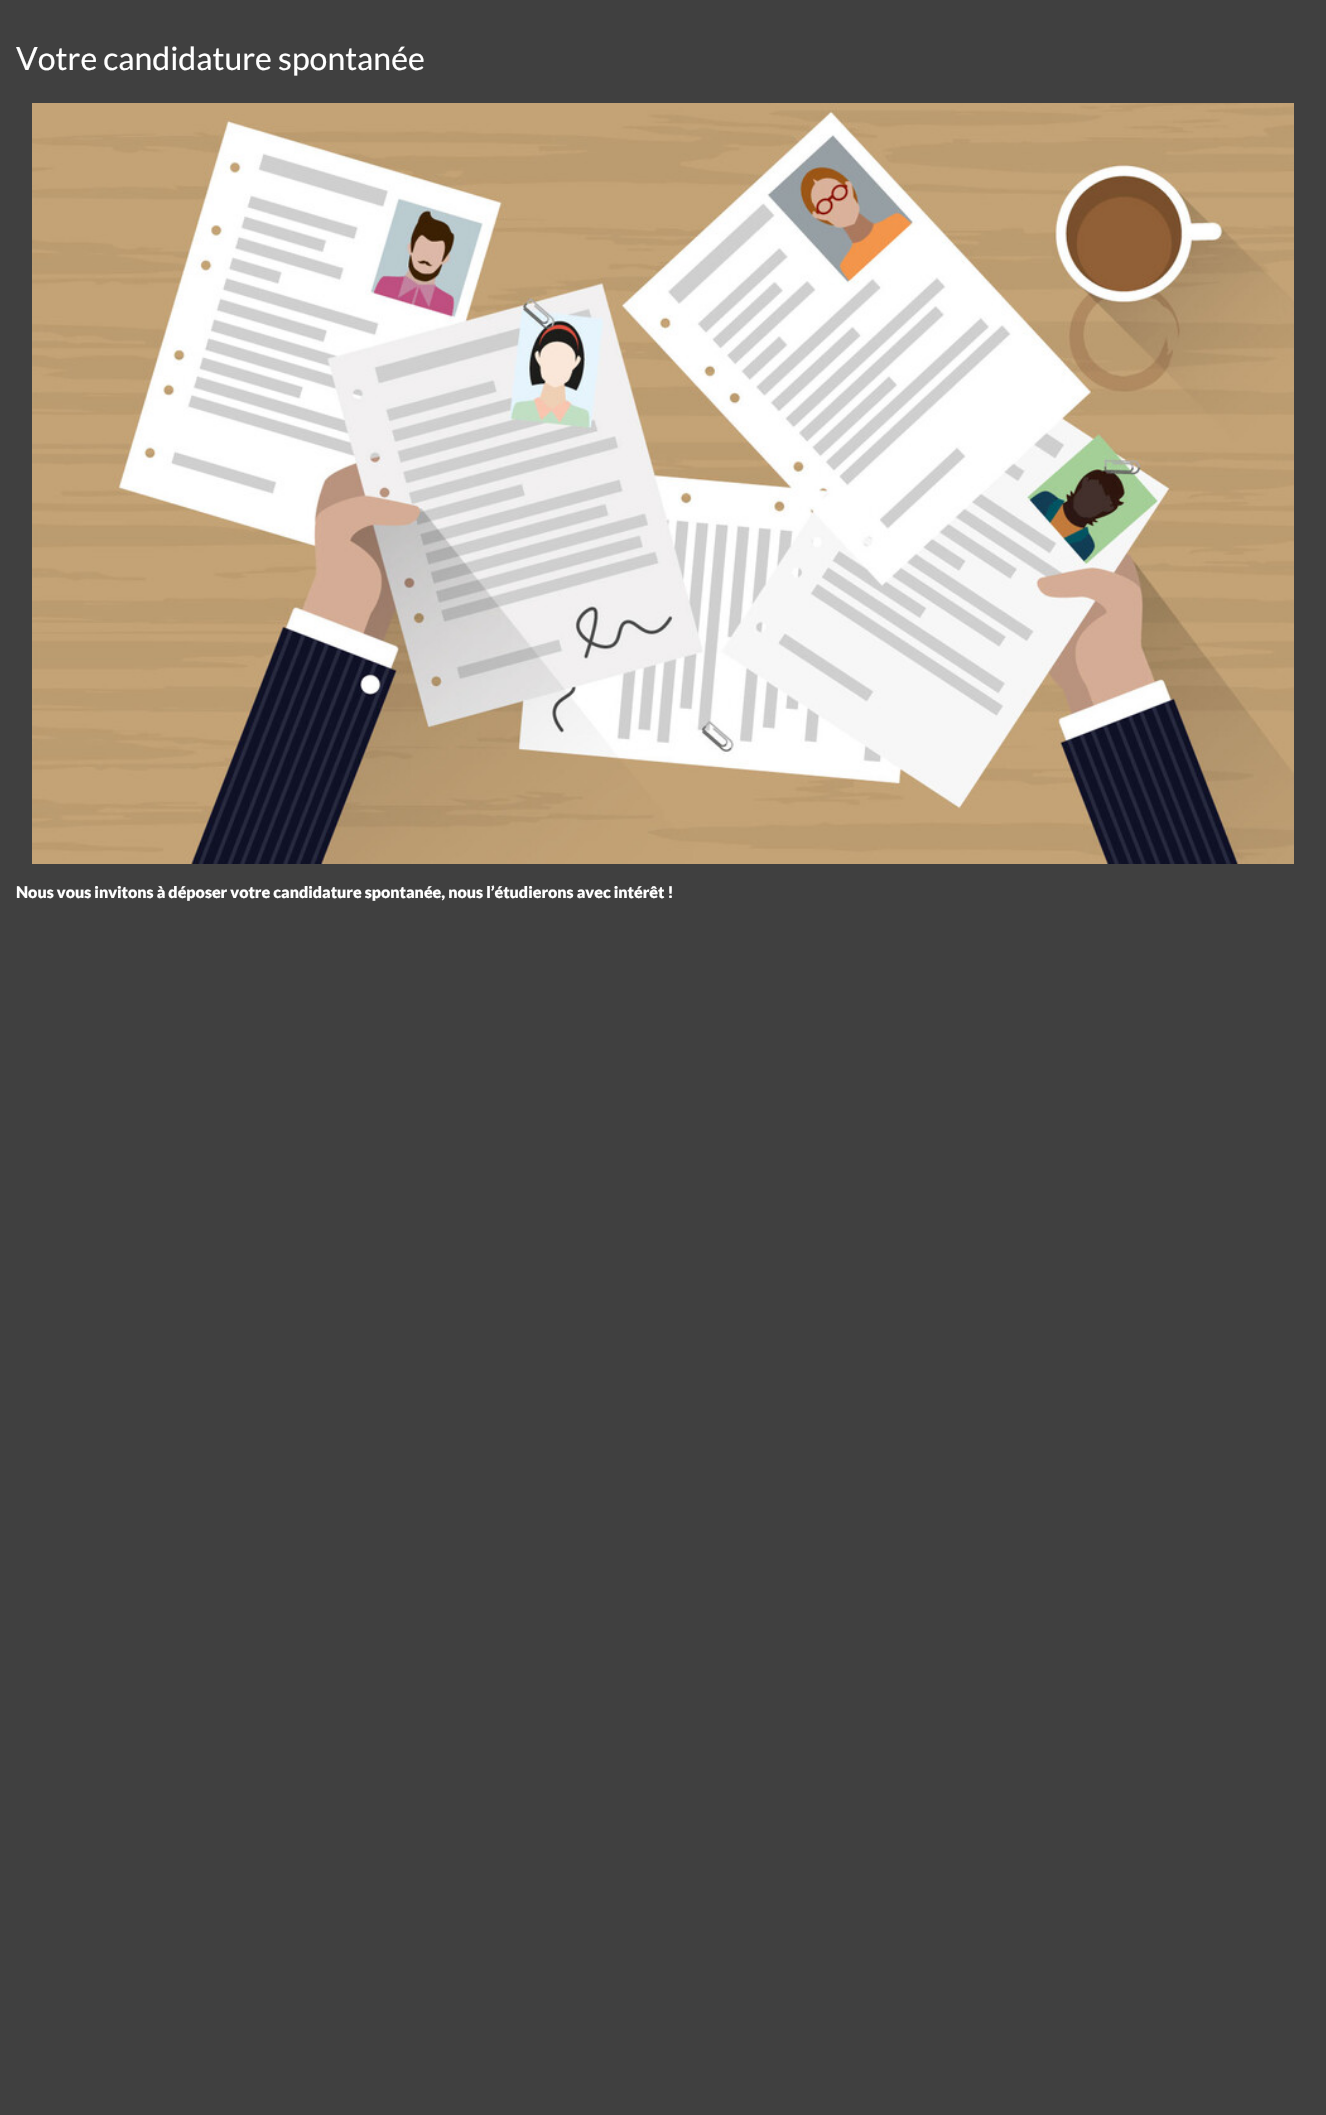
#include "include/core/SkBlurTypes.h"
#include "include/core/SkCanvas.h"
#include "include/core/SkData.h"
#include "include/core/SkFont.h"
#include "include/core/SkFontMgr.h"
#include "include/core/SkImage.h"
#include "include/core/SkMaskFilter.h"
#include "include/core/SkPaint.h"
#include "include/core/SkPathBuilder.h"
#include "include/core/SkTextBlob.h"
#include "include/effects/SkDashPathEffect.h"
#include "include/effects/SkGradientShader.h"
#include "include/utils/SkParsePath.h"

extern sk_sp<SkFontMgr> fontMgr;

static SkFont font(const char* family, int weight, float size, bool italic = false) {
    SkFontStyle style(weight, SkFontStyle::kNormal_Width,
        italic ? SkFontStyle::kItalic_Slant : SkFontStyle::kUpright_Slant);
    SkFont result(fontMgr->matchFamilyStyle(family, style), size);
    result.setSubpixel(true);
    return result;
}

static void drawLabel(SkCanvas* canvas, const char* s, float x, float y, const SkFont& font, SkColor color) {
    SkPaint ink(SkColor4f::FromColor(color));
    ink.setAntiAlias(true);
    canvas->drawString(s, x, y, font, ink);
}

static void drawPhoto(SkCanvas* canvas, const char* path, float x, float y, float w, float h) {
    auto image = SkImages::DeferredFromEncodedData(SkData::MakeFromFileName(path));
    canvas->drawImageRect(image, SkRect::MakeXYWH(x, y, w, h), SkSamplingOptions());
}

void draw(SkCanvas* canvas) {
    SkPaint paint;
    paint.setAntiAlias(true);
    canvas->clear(0xFF404040);
    SkFont font1 = font("Lato", 400, 32);
    drawLabel(canvas, "Votre candidature spontanée", 16, 70, font1, 0xFFFFFFFF);
    drawPhoto(canvas, "assets/img1.png", 32, 103, 1262, 761);
    SkFont font2 = font("Lato", 900, 16);
    drawLabel(canvas, "Nous vous invitons à déposer votre candidature spontanée, nous l’étudierons avec intérêt !", 16, 898, font2, 0xFFFFFFFF);
}
